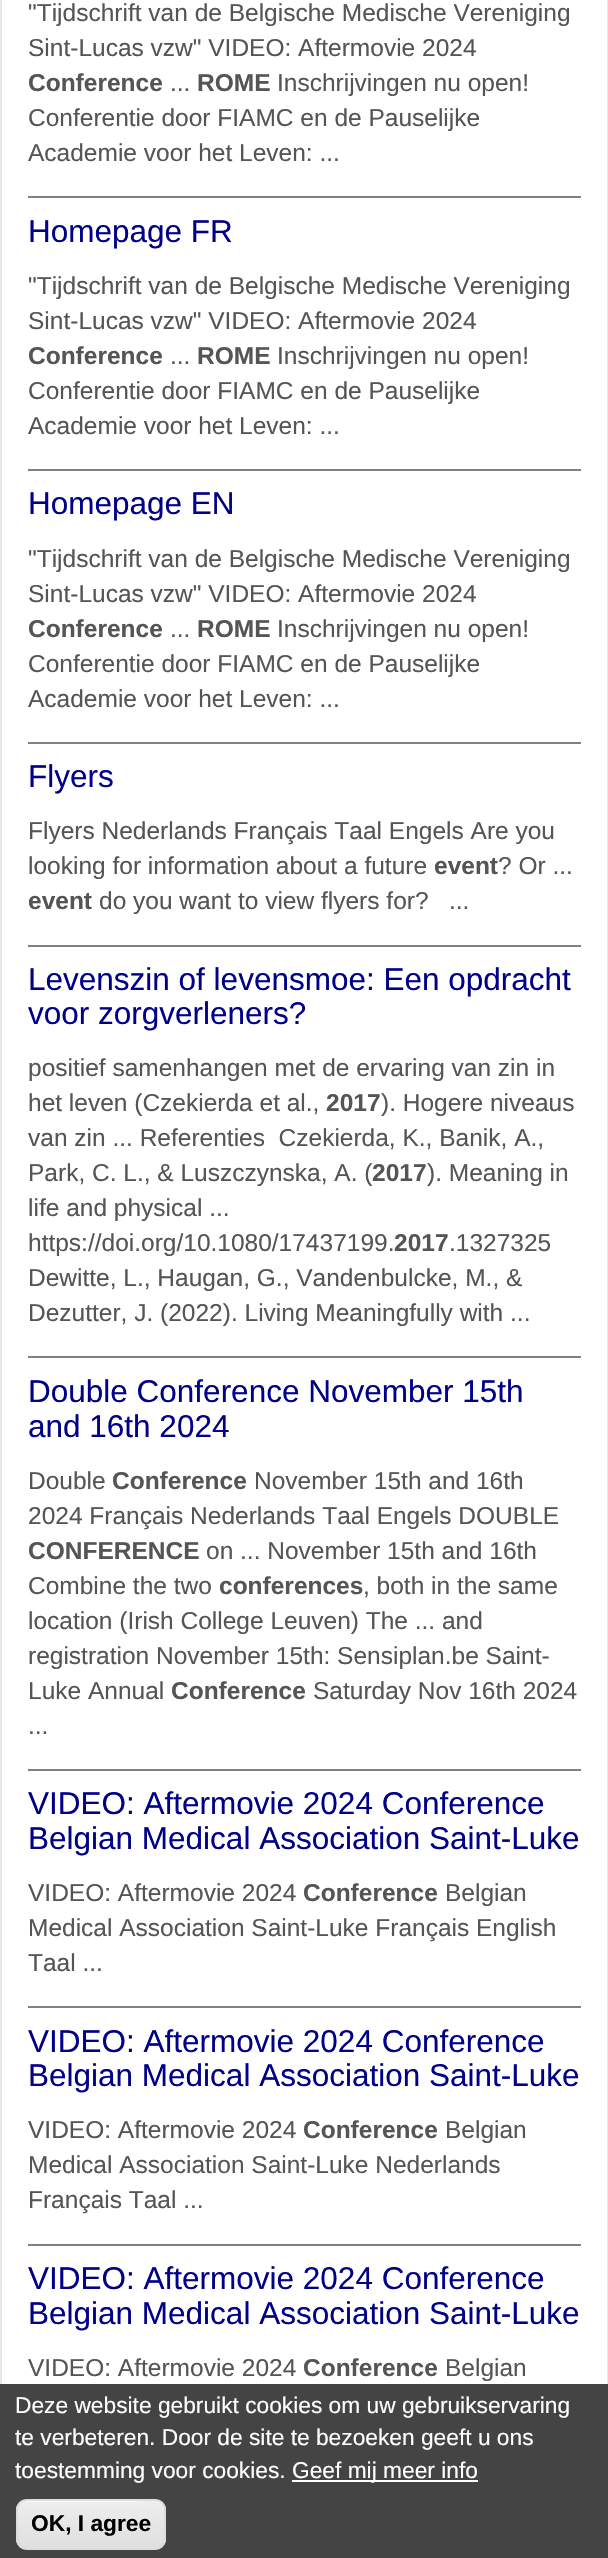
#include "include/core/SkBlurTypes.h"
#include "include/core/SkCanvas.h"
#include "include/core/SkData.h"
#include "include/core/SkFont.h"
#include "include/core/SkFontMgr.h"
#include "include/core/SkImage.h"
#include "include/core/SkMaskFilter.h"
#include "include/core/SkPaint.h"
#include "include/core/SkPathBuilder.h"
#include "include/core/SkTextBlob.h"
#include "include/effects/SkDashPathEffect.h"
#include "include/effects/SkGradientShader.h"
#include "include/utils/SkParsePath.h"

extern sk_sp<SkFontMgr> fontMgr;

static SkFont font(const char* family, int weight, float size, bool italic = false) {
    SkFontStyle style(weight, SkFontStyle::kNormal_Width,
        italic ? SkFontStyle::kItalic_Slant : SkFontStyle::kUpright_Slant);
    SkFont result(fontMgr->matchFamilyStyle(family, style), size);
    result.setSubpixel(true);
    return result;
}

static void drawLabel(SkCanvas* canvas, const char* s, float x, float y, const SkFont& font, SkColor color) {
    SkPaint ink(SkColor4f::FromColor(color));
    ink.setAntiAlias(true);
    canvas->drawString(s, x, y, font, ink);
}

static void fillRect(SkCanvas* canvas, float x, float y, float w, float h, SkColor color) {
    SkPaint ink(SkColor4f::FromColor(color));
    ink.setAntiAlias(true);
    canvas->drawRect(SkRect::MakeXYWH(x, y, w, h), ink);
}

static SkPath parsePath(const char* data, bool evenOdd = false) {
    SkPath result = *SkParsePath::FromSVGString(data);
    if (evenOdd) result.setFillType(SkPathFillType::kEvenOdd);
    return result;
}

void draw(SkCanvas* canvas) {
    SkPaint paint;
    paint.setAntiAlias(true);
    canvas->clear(0xFFFFFFFF);
    fillRect(canvas, 607, 0, 1, 2384, 0xFFE7E7E7);
    fillRect(canvas, 0, 0, 2, 2384, 0xFFE7E7E7);
    SkFont font1 = font("Liberation Sans", 400, 24.5f);
    drawLabel(canvas, "\"Tijdschrift van de Belgische Medische Vereniging", 28, 21, font1, 0xFF555555);
    drawLabel(canvas, "Sint-Lucas vzw\" VIDEO: Aftermovie 2024", 28, 56, font1, 0xFF555555);
    SkFont font2 = font("Liberation Sans", 700, 24.5f);
    drawLabel(canvas, "Conference", 28, 91, font2, 0xFF555555);
    drawLabel(canvas, "...", 170, 91, font1, 0xFF555555);
    drawLabel(canvas, "ROME", 197, 91, font2, 0xFF555555);
    drawLabel(canvas, "Inschrijvingen nu open!", 277, 91, font1, 0xFF555555);
    drawLabel(canvas, "Conferentie door FIAMC en de Pauselijke", 28, 126, font1, 0xFF555555);
    drawLabel(canvas, "Academie voor het Leven: ...", 28, 161, font1, 0xFF555555);
    fillRect(canvas, 28, 196, 553, 2, 0xFF808080);
    SkFont font3 = font("Liberation Sans", 400, 31.5f);
    drawLabel(canvas, "Homepage FR", 28, 242, font3, 0xFF000088);
    drawLabel(canvas, "\"Tijdschrift van de Belgische Medische Vereniging", 28, 294, font1, 0xFF555555);
    drawLabel(canvas, "Sint-Lucas vzw\" VIDEO: Aftermovie 2024", 28, 329, font1, 0xFF555555);
    drawLabel(canvas, "Conference", 28, 364, font2, 0xFF555555);
    drawLabel(canvas, "...", 170, 364, font1, 0xFF555555);
    drawLabel(canvas, "ROME", 197, 364, font2, 0xFF555555);
    drawLabel(canvas, "Inschrijvingen nu open!", 277, 364, font1, 0xFF555555);
    drawLabel(canvas, "Conferentie door FIAMC en de Pauselijke", 28, 399, font1, 0xFF555555);
    drawLabel(canvas, "Academie voor het Leven: ...", 28, 434, font1, 0xFF555555);
    fillRect(canvas, 28, 469, 553, 2, 0xFF808080);
    drawLabel(canvas, "Homepage EN", 28, 514, font3, 0xFF000088);
    drawLabel(canvas, "\"Tijdschrift van de Belgische Medische Vereniging", 28, 567, font1, 0xFF555555);
    drawLabel(canvas, "Sint-Lucas vzw\" VIDEO: Aftermovie 2024", 28, 602, font1, 0xFF555555);
    drawLabel(canvas, "Conference", 28, 637, font2, 0xFF555555);
    drawLabel(canvas, "...", 170, 637, font1, 0xFF555555);
    drawLabel(canvas, "ROME", 197, 637, font2, 0xFF555555);
    drawLabel(canvas, "Inschrijvingen nu open!", 277, 637, font1, 0xFF555555);
    drawLabel(canvas, "Conferentie door FIAMC en de Pauselijke", 28, 672, font1, 0xFF555555);
    drawLabel(canvas, "Academie voor het Leven: ...", 28, 707, font1, 0xFF555555);
    fillRect(canvas, 28, 742, 553, 2, 0xFF808080);
    drawLabel(canvas, "Flyers", 28, 787, font3, 0xFF000088);
    drawLabel(canvas, "Flyers Nederlands Français Taal Engels Are you", 28, 839, font1, 0xFF555555);
    drawLabel(canvas, "looking for information about a future", 28, 874, font1, 0xFF555555);
    drawLabel(canvas, "event", 434, 874, font2, 0xFF555555);
    drawLabel(canvas, "? Or ...", 498, 874, font1, 0xFF555555);
    drawLabel(canvas, "event", 28, 909, font2, 0xFF555555);
    drawLabel(canvas, "do you want to view flyers for?", 99, 909, font1, 0xFF555555);
    drawLabel(canvas, "...", 449, 909, font1, 0xFF555555);
    fillRect(canvas, 28, 945, 553, 2, 0xFF808080);
    drawLabel(canvas, "Levenszin of levensmoe: Een opdracht", 28, 990, font3, 0xFF000088);
    drawLabel(canvas, "voor zorgverleners?", 28, 1024, font3, 0xFF000088);
    drawLabel(canvas, "positief samenhangen met de ervaring van zin in", 28, 1076, font1, 0xFF555555);
    drawLabel(canvas, "het leven (Czekierda et al.,", 28, 1111, font1, 0xFF555555);
    drawLabel(canvas, "2017", 326, 1111, font2, 0xFF555555);
    drawLabel(canvas, "). Hogere niveaus", 381, 1111, font1, 0xFF555555);
    drawLabel(canvas, "van zin ... Referenties  Czekierda, K., Banik, A.,", 28, 1146, font1, 0xFF555555);
    drawLabel(canvas, "Park, C. L., & Luszczynska, A. (", 28, 1181, font1, 0xFF555555);
    drawLabel(canvas, "2017", 372, 1181, font2, 0xFF555555);
    drawLabel(canvas, "). Meaning in", 427, 1181, font1, 0xFF555555);
    drawLabel(canvas, "life and physical ...", 28, 1216, font1, 0xFF555555);
    drawLabel(canvas, "https://doi.org/10.1080/17437199.", 28, 1251, font1, 0xFF555555);
    drawLabel(canvas, "2017", 394, 1251, font2, 0xFF555555);
    drawLabel(canvas, ".1327325", 449, 1251, font1, 0xFF555555);
    drawLabel(canvas, "Dewitte, L., Haugan, G., Vandenbulcke, M., &", 28, 1286, font1, 0xFF555555);
    drawLabel(canvas, "Dezutter, J. (2022). Living Meaningfully with ...", 28, 1321, font1, 0xFF555555);
    fillRect(canvas, 28, 1356, 553, 2, 0xFF808080);
    drawLabel(canvas, "Double Conference November 15th", 28, 1402, font3, 0xFF000088);
    drawLabel(canvas, "and 16th 2024", 28, 1437, font3, 0xFF000088);
    drawLabel(canvas, "Double", 28, 1489, font1, 0xFF555555);
    drawLabel(canvas, "Conference", 112, 1489, font2, 0xFF555555);
    drawLabel(canvas, "November 15th and 16th", 254, 1489, font1, 0xFF555555);
    drawLabel(canvas, "2024 Français Nederlands Taal Engels DOUBLE", 28, 1524, font1, 0xFF555555);
    drawLabel(canvas, "CONFERENCE", 28, 1559, font2, 0xFF555555);
    drawLabel(canvas, "on ... November 15th and 16th", 206, 1559, font1, 0xFF555555);
    drawLabel(canvas, "Combine the two", 28, 1594, font1, 0xFF555555);
    drawLabel(canvas, "conferences", 219, 1594, font2, 0xFF555555);
    drawLabel(canvas, ", both in the same", 363, 1594, font1, 0xFF555555);
    drawLabel(canvas, "location (Irish College Leuven) The ... and", 28, 1629, font1, 0xFF555555);
    drawLabel(canvas, "registration November 15th: Sensiplan.be Saint-", 28, 1664, font1, 0xFF555555);
    drawLabel(canvas, "Luke Annual", 28, 1699, font1, 0xFF555555);
    drawLabel(canvas, "Conference", 171, 1699, font2, 0xFF555555);
    drawLabel(canvas, "Saturday Nov 16th 2024", 313, 1699, font1, 0xFF555555);
    drawLabel(canvas, "...", 28, 1734, font1, 0xFF555555);
    fillRect(canvas, 28, 1769, 553, 2, 0xFF808080);
    drawLabel(canvas, "VIDEO: Aftermovie 2024 Conference", 28, 1814, font3, 0xFF000088);
    drawLabel(canvas, "Belgian Medical Association Saint-Luke", 28, 1849, font3, 0xFF000088);
    drawLabel(canvas, "VIDEO: Aftermovie 2024", 28, 1901, font1, 0xFF555555);
    drawLabel(canvas, "Conference", 303, 1901, font2, 0xFF555555);
    drawLabel(canvas, "Belgian", 445, 1901, font1, 0xFF555555);
    drawLabel(canvas, "Medical Association Saint-Luke Français English", 28, 1936, font1, 0xFF555555);
    drawLabel(canvas, "Taal ...", 28, 1971, font1, 0xFF555555);
    fillRect(canvas, 28, 2006, 553, 2, 0xFF808080);
    drawLabel(canvas, "VIDEO: Aftermovie 2024 Conference", 28, 2052, font3, 0xFF000088);
    drawLabel(canvas, "Belgian Medical Association Saint-Luke", 28, 2086, font3, 0xFF000088);
    drawLabel(canvas, "VIDEO: Aftermovie 2024", 28, 2138, font1, 0xFF555555);
    drawLabel(canvas, "Conference", 303, 2138, font2, 0xFF555555);
    drawLabel(canvas, "Belgian", 445, 2138, font1, 0xFF555555);
    drawLabel(canvas, "Medical Association Saint-Luke Nederlands", 28, 2173, font1, 0xFF555555);
    drawLabel(canvas, "Français Taal ...", 28, 2208, font1, 0xFF555555);
    fillRect(canvas, 28, 2244, 553, 2, 0xFF808080);
    drawLabel(canvas, "VIDEO: Aftermovie 2024 Conference", 28, 2289, font3, 0xFF000088);
    drawLabel(canvas, "Belgian Medical Association Saint-Luke", 28, 2324, font3, 0xFF000088);
    drawLabel(canvas, "VIDEO: Aftermovie 2024", 28, 2376, font1, 0xFF555555);
    drawLabel(canvas, "Conference", 303, 2376, font2, 0xFF555555);
    drawLabel(canvas, "Belgian", 445, 2376, font1, 0xFF555555);
    fillRect(canvas, 0, 2384, 608, 174, 0xFF444444);
    SkFont font4 = font("Liberation Sans", 400, 22.75f);
    drawLabel(canvas, "Deze website gebruikt cookies om uw gebruikservaring", 15, 2413, font4, 0xFFFFFFFF);
    drawLabel(canvas, "te verbeteren. Door de site te bezoeken geeft u ons", 15, 2445, font4, 0xFFFFFFFF);
    drawLabel(canvas, "toestemming voor cookies.", 15, 2478, font4, 0xFFFFFFFF);
    fillRect(canvas, 292, 2480, 186, 2, 0xFFFFFFFF);
    drawLabel(canvas, "Geef mij meer info", 292, 2478, font4, 0xFFFFFFFF);
    canvas->save();
    canvas->clipPath(parsePath("M27 2499H155C161 2499 166 2504 166 2510V2539C166 2545 161 2550 155 2550H27C21 2550 16 2545 16 2539V2510C16 2504 21 2499 27 2499Z"), true);
    {
        const SkColor colors[] = {0xFFEDEDED, 0xFFDFDFDF};
        const float stops[] = {0.05f, 1};
        const SkPoint ends[] = {{91, 2501}, {91, 2548}};
        paint.setShader(SkGradientShader::MakeLinear(ends, colors, stops, 2, SkTileMode::kClamp));
        paint.setAlpha(255);
    }
    canvas->drawRect(SkRect::MakeXYWH(16, 2501, 150, 47), paint);
    canvas->restore();
    paint.setShader(nullptr);
    paint.setColor(0xFFFFFFFF);
    canvas->drawPath(parsePath("M26 2502H134C140 2502 162 2497 164 2509V2544C165 2542 165 2541 165 2539V2510C165 2505 161 2501 156 2501H27C22 2501 18 2505 18 2510V2511C18 2506 21 2502 26 2502Z"), paint);
    paint.setStroke(true);
    paint.setStrokeWidth(2);
    paint.setColor(0xFFDCDCDC);
    canvas->drawRoundRect(SkRect::MakeXYWH(17, 2500, 148, 49), 10, 10, paint);
    SkFont font5 = font("Liberation Sans", 700, 22.75f);
    drawLabel(canvas, "OK, I agree", 31, 2531, font5, 0xFF000000);
}
